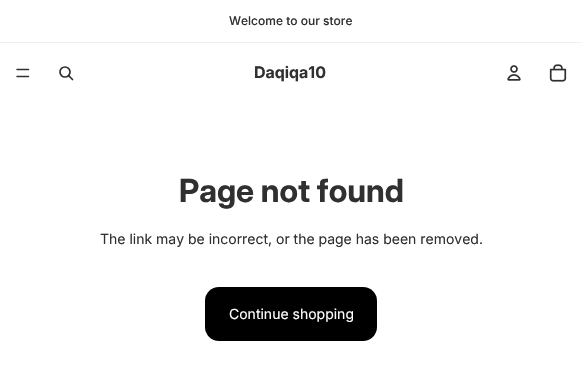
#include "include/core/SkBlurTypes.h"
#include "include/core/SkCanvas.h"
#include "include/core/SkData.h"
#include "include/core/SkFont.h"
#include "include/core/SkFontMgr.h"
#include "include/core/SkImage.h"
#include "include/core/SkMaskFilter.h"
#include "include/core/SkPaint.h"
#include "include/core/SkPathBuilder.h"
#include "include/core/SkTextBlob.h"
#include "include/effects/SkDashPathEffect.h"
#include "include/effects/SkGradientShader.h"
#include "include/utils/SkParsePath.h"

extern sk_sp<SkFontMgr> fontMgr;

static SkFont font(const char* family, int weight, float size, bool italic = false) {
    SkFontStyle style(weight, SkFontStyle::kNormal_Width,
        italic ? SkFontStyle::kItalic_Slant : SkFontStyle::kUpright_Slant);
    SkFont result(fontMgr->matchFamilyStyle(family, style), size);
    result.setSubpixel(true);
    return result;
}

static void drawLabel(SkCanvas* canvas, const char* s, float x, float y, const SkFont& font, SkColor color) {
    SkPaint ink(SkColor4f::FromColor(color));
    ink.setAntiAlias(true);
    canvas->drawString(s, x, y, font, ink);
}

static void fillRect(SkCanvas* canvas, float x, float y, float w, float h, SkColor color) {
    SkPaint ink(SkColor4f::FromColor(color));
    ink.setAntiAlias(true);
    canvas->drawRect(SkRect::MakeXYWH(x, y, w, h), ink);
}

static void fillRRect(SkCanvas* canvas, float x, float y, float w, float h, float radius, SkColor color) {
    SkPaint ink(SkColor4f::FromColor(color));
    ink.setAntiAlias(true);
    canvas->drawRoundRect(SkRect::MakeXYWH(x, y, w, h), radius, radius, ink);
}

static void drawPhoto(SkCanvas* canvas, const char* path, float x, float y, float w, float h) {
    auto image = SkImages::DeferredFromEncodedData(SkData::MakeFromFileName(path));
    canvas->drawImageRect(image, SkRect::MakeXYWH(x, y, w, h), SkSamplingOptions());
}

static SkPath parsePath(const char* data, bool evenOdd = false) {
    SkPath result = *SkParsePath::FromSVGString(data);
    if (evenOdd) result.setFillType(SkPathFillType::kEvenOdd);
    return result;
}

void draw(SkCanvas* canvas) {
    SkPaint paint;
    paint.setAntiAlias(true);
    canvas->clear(0xFFFFFFFF);
    fillRect(canvas, 0, 42, 582, 1, 0xFFF0F0F0);
    SkFont font1 = font("Inter", 500, 12);
    drawLabel(canvas, "Welcome to our store", 229, 25, font1, 0xFF303030);
    paint.setStroke(true);
    paint.setStrokeWidth(1.5f);
    paint.setStrokeCap(SkPaint::kRound_Cap);
    paint.setColor(0xFF303030);
    canvas->drawPath(parsePath("M17 69.5H28.5M17 76.5H28.5"), paint);
    paint.setStrokeWidth(1.7f);
    paint.setStrokeCap(SkPaint::kButt_Cap);
    canvas->drawCircle(65, 72, 5, paint);
    paint.setStrokeCap(SkPaint::kRound_Cap);
    paint.setStrokeJoin(SkPaint::kRound_Join);
    paint.setColor(0xCF000000);
    canvas->drawPath(parsePath("M69 76L72.5 79.5"), paint);
    SkFont font2 = font("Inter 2", 700, 16);
    drawLabel(canvas, "Daqiqa10", 254, 78, font2, 0xFF303030);
    drawPhoto(canvas, "assets/img1.png", 507, 65, 14, 16);
    drawPhoto(canvas, "assets/img2.png", 549, 64, 18, 18);
    SkFont font3 = font("Inter", 700, 32);
    drawLabel(canvas, "Page not found", 179, 202, font3, 0xFF303030);
    SkFont font4 = font("Inter", 400, 14);
    drawLabel(canvas, "The link may be incorrect, or the page has been removed.", 100, 244, font4, 0xFF303030);
    fillRRect(canvas, 205, 287, 172, 54, 14, 0xFF000000);
    drawLabel(canvas, "Continue shopping", 229, 319, font4, 0xFFFFFFFF);
}
